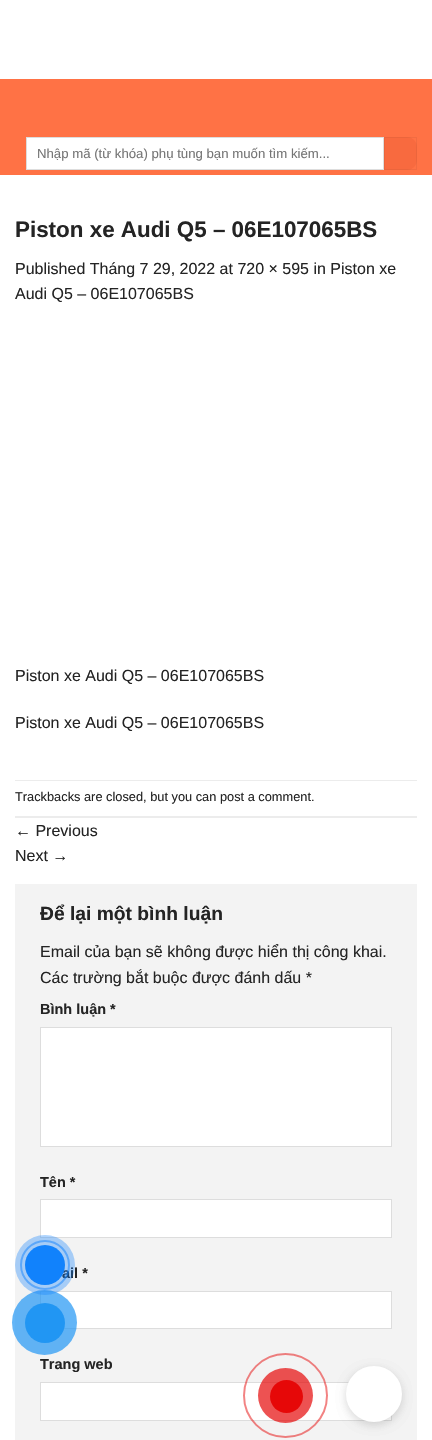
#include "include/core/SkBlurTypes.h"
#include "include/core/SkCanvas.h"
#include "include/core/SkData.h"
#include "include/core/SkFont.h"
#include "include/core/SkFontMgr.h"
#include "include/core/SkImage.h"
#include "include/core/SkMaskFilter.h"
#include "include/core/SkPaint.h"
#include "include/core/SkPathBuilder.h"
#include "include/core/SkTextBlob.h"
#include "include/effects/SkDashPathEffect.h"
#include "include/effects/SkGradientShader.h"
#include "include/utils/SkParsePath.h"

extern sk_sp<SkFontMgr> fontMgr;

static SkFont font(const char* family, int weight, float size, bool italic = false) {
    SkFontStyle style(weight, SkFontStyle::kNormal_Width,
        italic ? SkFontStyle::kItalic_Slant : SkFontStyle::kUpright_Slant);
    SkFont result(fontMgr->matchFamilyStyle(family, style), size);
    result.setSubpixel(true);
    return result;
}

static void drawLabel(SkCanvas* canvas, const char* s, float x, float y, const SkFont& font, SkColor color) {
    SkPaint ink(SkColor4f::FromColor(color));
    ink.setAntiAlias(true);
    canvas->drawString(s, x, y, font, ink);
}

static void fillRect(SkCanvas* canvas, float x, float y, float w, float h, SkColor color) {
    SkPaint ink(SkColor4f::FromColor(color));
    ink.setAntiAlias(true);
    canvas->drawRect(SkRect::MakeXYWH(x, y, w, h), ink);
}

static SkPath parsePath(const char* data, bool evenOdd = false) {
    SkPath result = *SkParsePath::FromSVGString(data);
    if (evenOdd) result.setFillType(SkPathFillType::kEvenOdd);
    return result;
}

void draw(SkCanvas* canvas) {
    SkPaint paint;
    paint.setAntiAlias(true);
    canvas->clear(0xFFFFFFFF);
    fillRect(canvas, 0, 79, 432, 96, 0xFFFF7245);
    paint.setColor(0xFFFFFFFF);
    canvas->drawRect(SkRect::MakeXYWH(26.5f, 137.5f, 357, 32), paint);
    paint.setStroke(true);
    paint.setStrokeWidth(1);
    paint.setColor(0xFFDDDDDD);
    canvas->drawRect(SkRect::MakeXYWH(26.5f, 137.5f, 357, 32), paint);
    SkFont font1 = font("Liberation Sans", 400, 13.2f);
    drawLabel(canvas, "Nhập mã (từ khóa) phụ tùng bạn muốn tìm kiếm...", 37, 158, font1, 0xFF757575);
    paint.setStroke(false);
    paint.setColor(0xFFF86A3F);
    canvas->drawPath(parsePath("M384 137H407C412.5 137 417 141.5 417 147V160C417 165.5 412.5 170 407 170H384Z"), paint);
    paint.setStroke(true);
    paint.setColor(0x0D000000);
    canvas->drawRect(SkRect::MakeXYWH(384.5f, 137.5f, 32, 32), paint);
    SkFont font2 = font("Liberation Sans", 700, 22.4f);
    drawLabel(canvas, "Piston xe Audi Q5 – 06E107065BS", 15, 237, font2, 0xFF242424);
    SkFont font3 = font("Liberation Sans", 400, 16);
    drawLabel(canvas, "Published Tháng 7 29, 2022 at 720 × 595 in Piston xe", 15, 274, font3, 0xFF242424);
    drawLabel(canvas, "Audi Q5 – 06E107065BS", 15, 299, font3, 0xFF242424);
    drawLabel(canvas, "Piston xe Audi Q5 – 06E107065BS", 15, 681, font3, 0xFF242424);
    drawLabel(canvas, "Piston xe Audi Q5 – 06E107065BS", 15, 728, font3, 0xFF242424);
    fillRect(canvas, 15, 780, 402, 1, 0xFFECECEC);
    fillRect(canvas, 15, 816, 402, 2, 0xFFECECEC);
    SkFont font4 = font("Liberation Sans", 400, 12.8f);
    drawLabel(canvas, "Trackbacks are closed, but you can post a comment.", 15, 801, font4, 0xFF242424);
    drawLabel(canvas, "← Previous", 15, 836, font3, 0xFF242424);
    drawLabel(canvas, "Next →", 15, 861, font3, 0xFF242424);
    fillRect(canvas, 15, 884, 402, 556, 0xFFF3F3F3);
    SkFont font5 = font("Liberation Sans", 700, 19.25f);
    drawLabel(canvas, "Để lại một bình luận", 40, 920, font5, 0xFF242424);
    drawLabel(canvas, "Email của bạn sẽ không được hiển thị công khai.", 40, 957, font3, 0xFF242424);
    drawLabel(canvas, "Các trường bắt buộc được đánh dấu *", 40, 983, font3, 0xFF242424);
    SkFont font6 = font("Liberation Sans", 700, 14.5f);
    drawLabel(canvas, "Bình luận *", 40, 1014, font6, 0xFF242424);
    paint.setStroke(false);
    paint.setColor(0xFFFFFFFF);
    canvas->drawRect(SkRect::MakeXYWH(40.5f, 1027.5f, 351, 119), paint);
    paint.setStroke(true);
    paint.setColor(0xFFDDDDDD);
    canvas->drawRect(SkRect::MakeXYWH(40.5f, 1027.5f, 351, 119), paint);
    drawLabel(canvas, "Tên *", 40, 1187, font6, 0xFF242424);
    paint.setStroke(false);
    paint.setColor(0xFFFFFFFF);
    canvas->drawRect(SkRect::MakeXYWH(40.5f, 1199.5f, 351, 38), paint);
    paint.setStroke(true);
    paint.setColor(0xFFDDDDDD);
    canvas->drawRect(SkRect::MakeXYWH(40.5f, 1199.5f, 351, 38), paint);
    drawLabel(canvas, "ail *", 62, 1278, font6, 0xFF242424);
    paint.setStroke(false);
    paint.setColor(0xFFFFFFFF);
    canvas->drawRect(SkRect::MakeXYWH(40.5f, 1291.5f, 351, 37), paint);
    paint.setStroke(true);
    paint.setColor(0xFFDDDDDD);
    canvas->drawRect(SkRect::MakeXYWH(40.5f, 1291.5f, 351, 37), paint);
    drawLabel(canvas, "Trang web", 40, 1369, font6, 0xFF242424);
    paint.setStroke(false);
    paint.setColor(0xFFFFFFFF);
    canvas->drawRect(SkRect::MakeXYWH(40.5f, 1382.5f, 351, 38), paint);
    paint.setStroke(true);
    paint.setColor(0xFFDDDDDD);
    canvas->drawRect(SkRect::MakeXYWH(40.5f, 1382.5f, 351, 38), paint);
    paint.setStrokeWidth(2);
    paint.setColor(0x801182FC);
    canvas->drawCircle(45, 1265, 24, paint);
    paint.setStroke(false);
    paint.setColor(0xB32196F3);
    canvas->drawCircle(44.5f, 1322.5f, 32.5f, paint);
    paint.setColor(0x571182FC);
    canvas->drawCircle(45, 1265, 30, paint);
    paint.setColor(0xFF1182FC);
    canvas->drawCircle(45, 1265, 20, paint);
    paint.setColor(0xFF2196F3);
    canvas->drawCircle(45, 1323, 20, paint);
    paint.setStroke(true);
    paint.setColor(0x80E60808);
    canvas->drawCircle(285.5f, 1395.5f, 41.5f, paint);
    paint.setStroke(false);
    paint.setColor(0xB3E60808);
    canvas->drawCircle(285.5f, 1395.5f, 27.5f, paint);
    paint.setColor(0xFFE60808);
    canvas->drawCircle(286.5f, 1396.5f, 16.5f, paint);
    paint.setColor(0x14000000);
    paint.setMaskFilter(SkMaskFilter::MakeBlur(kNormal_SkBlurStyle, 5));
    canvas->drawRoundRect(SkRect::MakeXYWH(346, 1369, 56, 56), 28, 28, paint);
    paint.setMaskFilter(nullptr);
    paint.setMaskFilter(SkMaskFilter::MakeBlur(kNormal_SkBlurStyle, 5));
    canvas->drawRoundRect(SkRect::MakeXYWH(346, 1369, 56, 56), 28, 28, paint);
    paint.setMaskFilter(nullptr);
    paint.setColor(0xFFFFFFFF);
    canvas->drawCircle(374, 1394, 25.5f, paint);
    paint.setStroke(true);
    paint.setStrokeWidth(5);
    canvas->drawCircle(374, 1394, 25.5f, paint);
}
